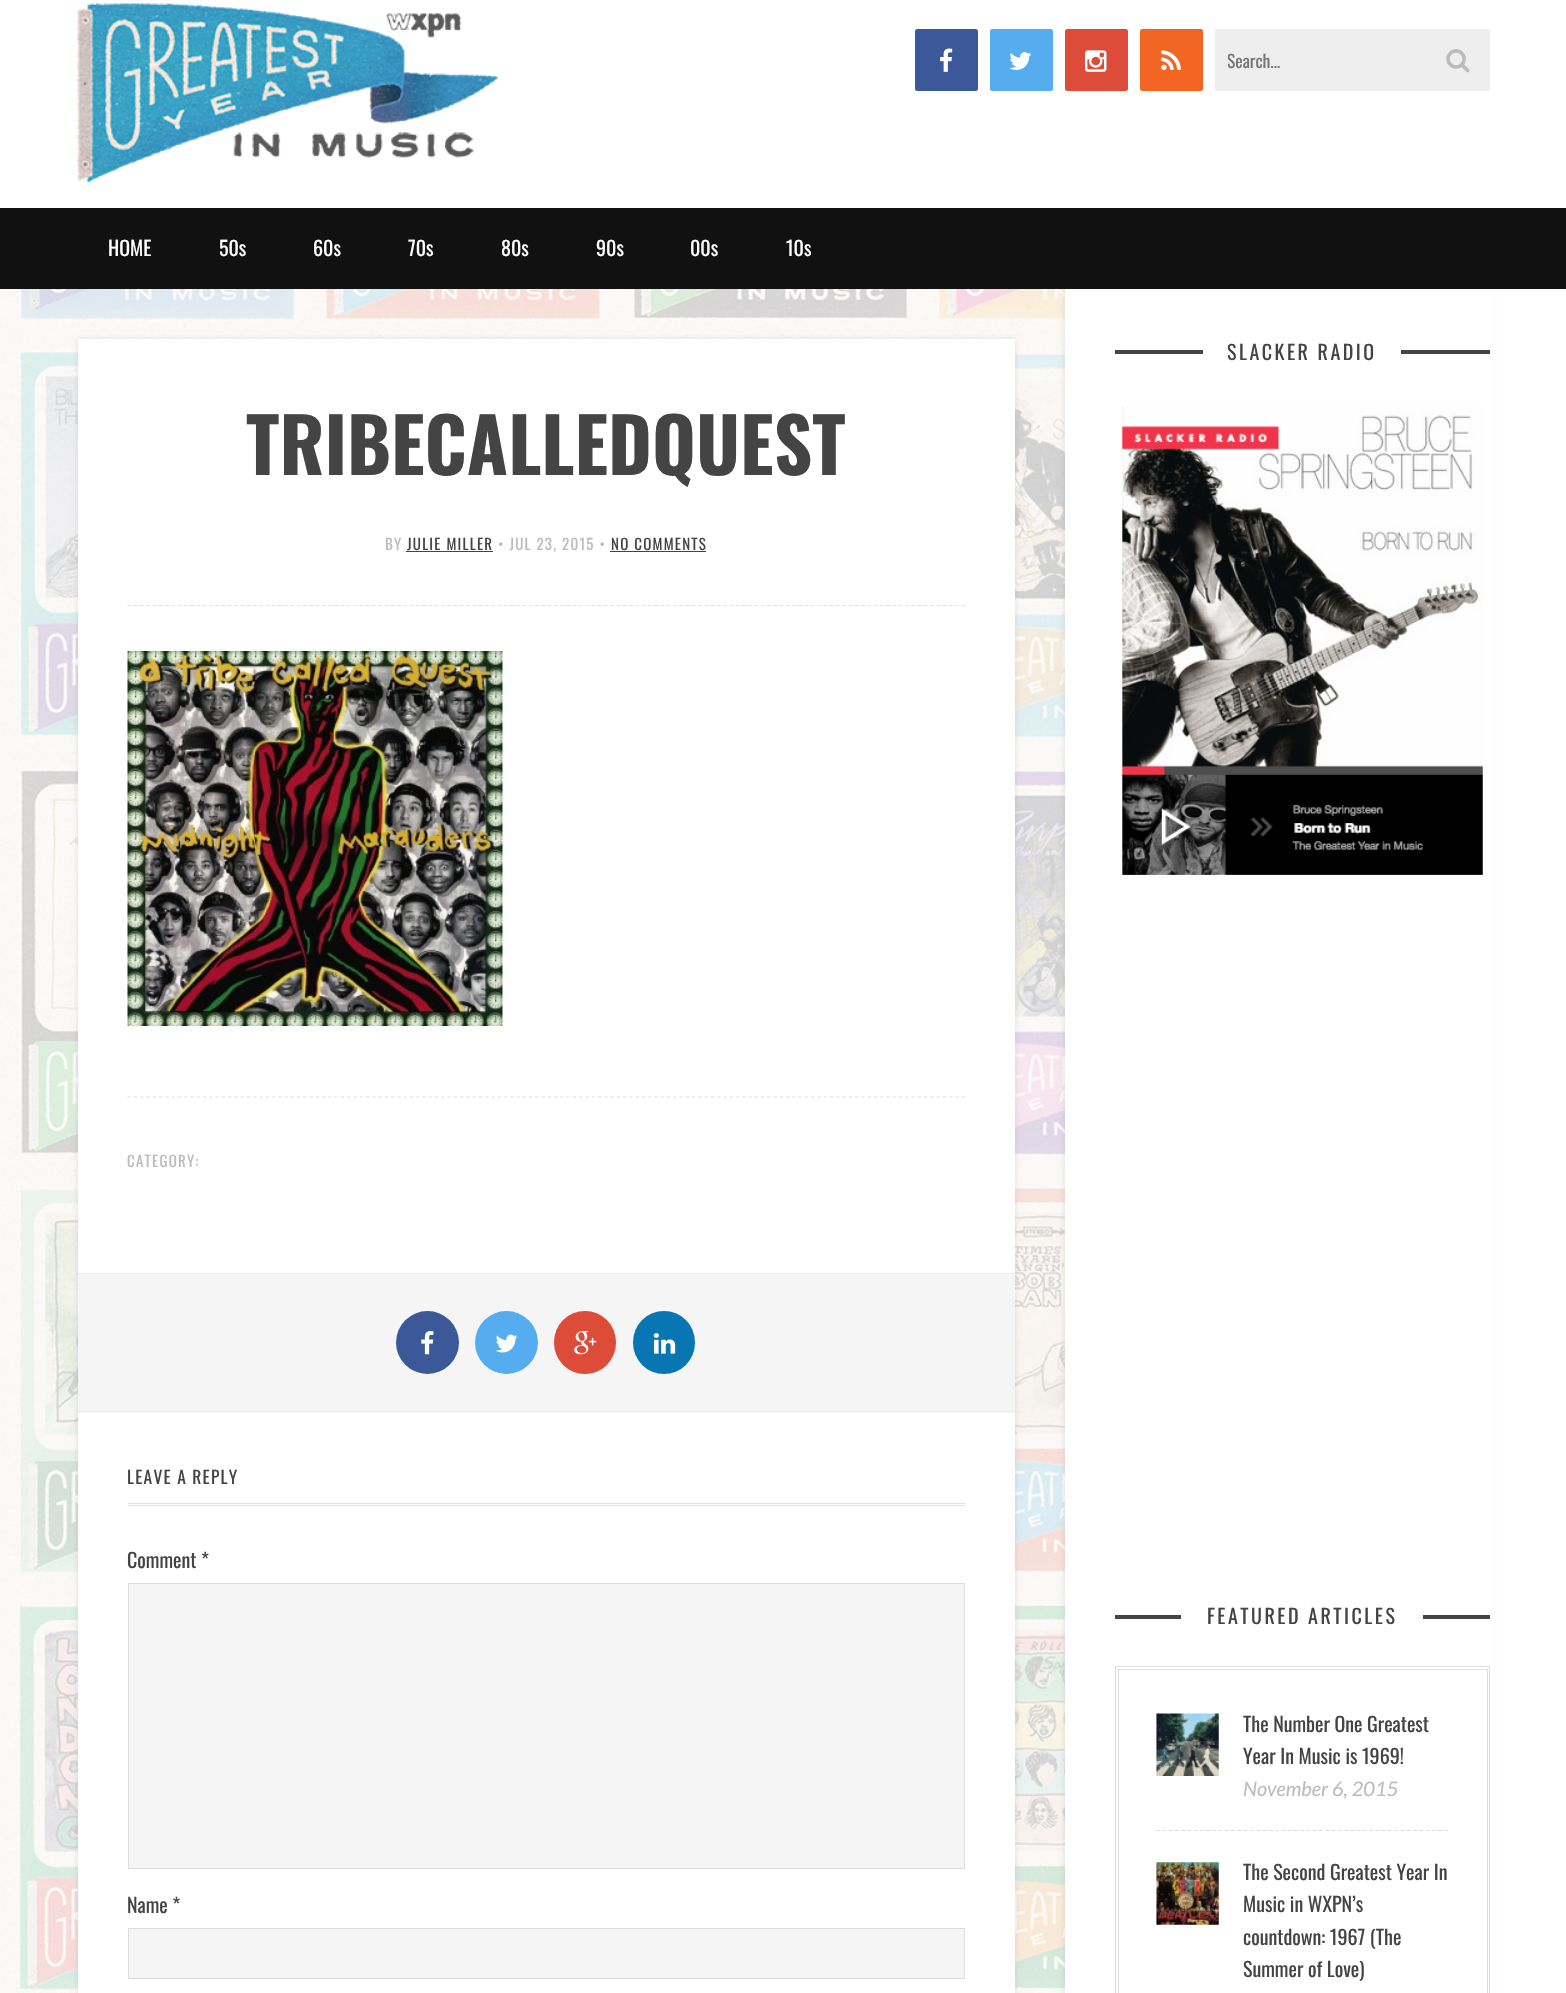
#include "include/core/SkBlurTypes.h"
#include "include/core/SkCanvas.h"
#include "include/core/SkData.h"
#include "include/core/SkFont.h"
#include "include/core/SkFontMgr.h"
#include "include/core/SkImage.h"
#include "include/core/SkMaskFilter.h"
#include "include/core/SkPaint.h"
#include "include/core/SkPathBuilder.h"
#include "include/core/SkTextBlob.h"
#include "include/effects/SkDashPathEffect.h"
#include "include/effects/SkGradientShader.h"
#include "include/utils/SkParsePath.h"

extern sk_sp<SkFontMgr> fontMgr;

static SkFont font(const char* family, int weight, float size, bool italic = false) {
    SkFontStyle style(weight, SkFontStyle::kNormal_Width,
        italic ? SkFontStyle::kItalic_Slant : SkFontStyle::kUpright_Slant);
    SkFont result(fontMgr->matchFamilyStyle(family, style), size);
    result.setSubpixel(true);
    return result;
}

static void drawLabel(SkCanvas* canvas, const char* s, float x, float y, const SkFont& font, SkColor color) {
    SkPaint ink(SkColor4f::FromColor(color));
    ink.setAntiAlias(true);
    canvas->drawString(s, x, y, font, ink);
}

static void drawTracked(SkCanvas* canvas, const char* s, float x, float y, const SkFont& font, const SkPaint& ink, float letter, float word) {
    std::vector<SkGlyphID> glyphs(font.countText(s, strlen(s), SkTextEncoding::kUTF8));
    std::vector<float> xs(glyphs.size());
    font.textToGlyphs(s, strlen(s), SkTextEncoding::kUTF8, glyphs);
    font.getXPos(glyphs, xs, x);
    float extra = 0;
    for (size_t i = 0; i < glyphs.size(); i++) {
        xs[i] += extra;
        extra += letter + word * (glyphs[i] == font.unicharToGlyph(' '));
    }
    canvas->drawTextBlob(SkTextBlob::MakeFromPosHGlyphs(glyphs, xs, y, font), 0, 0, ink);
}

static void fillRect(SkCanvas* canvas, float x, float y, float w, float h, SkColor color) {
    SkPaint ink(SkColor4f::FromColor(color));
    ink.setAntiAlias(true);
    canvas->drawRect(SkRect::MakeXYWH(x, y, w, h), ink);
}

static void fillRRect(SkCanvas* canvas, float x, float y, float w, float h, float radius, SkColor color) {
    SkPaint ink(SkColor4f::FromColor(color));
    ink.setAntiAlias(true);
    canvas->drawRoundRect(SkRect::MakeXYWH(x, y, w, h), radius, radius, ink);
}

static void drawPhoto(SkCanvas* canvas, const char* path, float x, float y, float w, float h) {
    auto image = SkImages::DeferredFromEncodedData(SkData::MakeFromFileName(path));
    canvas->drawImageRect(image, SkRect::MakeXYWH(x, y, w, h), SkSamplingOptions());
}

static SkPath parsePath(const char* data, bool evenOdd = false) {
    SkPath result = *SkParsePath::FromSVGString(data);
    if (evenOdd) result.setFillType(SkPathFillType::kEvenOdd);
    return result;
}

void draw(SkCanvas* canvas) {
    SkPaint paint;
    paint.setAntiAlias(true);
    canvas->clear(0xFFFFFFFF);
    drawPhoto(canvas, "assets/img1.png", 0, 289, 1065, 1704);
    drawPhoto(canvas, "assets/img2.png", 77, 3, 421, 180);
    fillRRect(canvas, 915, 29, 63, 62, 2.5f, 0xFF3B5998);
    drawPhoto(canvas, "assets/img3.png", 940, 48, 13, 24);
    fillRRect(canvas, 990, 29, 63, 62, 2.5f, 0xFF55ACEE);
    drawPhoto(canvas, "assets/img4.png", 1009, 52, 23, 18);
    fillRRect(canvas, 1065, 29, 63, 62, 2.5f, 0xFFDD4B39);
    drawPhoto(canvas, "assets/img5.png", 1085, 50, 22, 22);
    fillRRect(canvas, 1140, 29, 63, 62, 2.5f, 0xFFF26522);
    drawPhoto(canvas, "assets/img6.png", 1161, 50, 20, 20);
    fillRRect(canvas, 1215, 29, 275, 62, 2.5f, 0xFFEEEEEE);
    canvas->save();
    canvas->clipRect(SkRect::MakeXYWH(1228, 46, 218, 27));
    SkFont font1 = font("Oswald", 400, 17.5f);
    drawLabel(canvas, "Search…", 1227, 68, font1, 0xFF757575);
    canvas->restore();
    drawPhoto(canvas, "assets/img7.png", 1446, 49, 24, 24);
    paint.setColor(0x1A000000);
    paint.setMaskFilter(SkMaskFilter::MakeBlur(kNormal_SkBlurStyle, 3));
    canvas->drawRect(SkRect::MakeXYWH(1065, 289, 425, 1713), paint);
    paint.setMaskFilter(nullptr);
    fillRect(canvas, 0, 208, 1566, 81, 0xFF111111);
    SkFont font2 = font("Oswald", 400, 20);
    drawLabel(canvas, "HOME", 108, 256, font2, 0xFFFFFFFF);
    drawLabel(canvas, "50s", 219, 256, font2, 0xFFFFFFFF);
    drawLabel(canvas, "60s", 313, 256, font2, 0xFFFFFFFF);
    drawLabel(canvas, "70s", 408, 256, font2, 0xFFFFFFFF);
    drawLabel(canvas, "80s", 501, 256, font2, 0xFFFFFFFF);
    drawLabel(canvas, "90s", 596, 256, font2, 0xFFFFFFFF);
    drawLabel(canvas, "00s", 690, 256, font2, 0xFFFFFFFF);
    drawLabel(canvas, "10s", 786, 256, font2, 0xFFFFFFFF);
    fillRect(canvas, 1065, 289, 429, 1704, 0xFFFFFFFF);
    paint.setMaskFilter(SkMaskFilter::MakeBlur(kNormal_SkBlurStyle, 3));
    canvas->drawRect(SkRect::MakeXYWH(78, 339, 937, 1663), paint);
    paint.setMaskFilter(nullptr);
    fillRect(canvas, 78, 339, 937, 1654, 0xFFFFFFFF);
    paint.setStroke(true);
    paint.setStrokeWidth(1.2f);
    paint.setColor(0xFFE2E2E2);
    paint.setPathEffect(SkDashPathEffect::Make({{3.75f, 2.52f}}, 0));
    canvas->drawPath(parsePath("M127.5 605.5H965"), paint);
    paint.setPathEffect(nullptr);
    SkFont font3 = font("Oswald", 700, 75);
    drawLabel(canvas, "TRIBECALLEDQUEST", 246, 475, font3, 0xFF444444);
    SkFont font4 = font("Oswald", 400, 15);
    paint.setStroke(false);
    paint.setColor(0xFFBBBBBB);
    drawTracked(canvas, "BY", 385, 550, font4, paint, 1.25f, 0);
    paint.setColor(0xFF444444);
    drawTracked(canvas, "JULIE MILLER", 407, 550, font4, paint, 1.25f, 0);
    fillRect(canvas, 406, 551, 87, 1, 0xFF444444);
    paint.setColor(0xFFBBBBBB);
    drawTracked(canvas, "• JUL 23, 2015 •", 498, 550, font4, paint, 1.25f, 0);
    paint.setColor(0xFF444444);
    drawTracked(canvas, "NO COMMENTS", 611, 550, font4, paint, 1.25f, 0);
    fillRect(canvas, 610, 551, 96, 1, 0xFF444444);
    drawPhoto(canvas, "assets/img8.png", 127, 651, 376, 375);
    paint.setStroke(true);
    paint.setColor(0xFFE2E2E2);
    paint.setPathEffect(SkDashPathEffect::Make({{3.75f, 2.52f}}, 0));
    canvas->drawPath(parsePath("M127.5 1097H965"), paint);
    paint.setPathEffect(nullptr);
    paint.setStroke(false);
    paint.setColor(0xFFBBBBBB);
    drawTracked(canvas, "CATEGORY:", 127, 1167, font4, paint, 1.25f, 0);
    fillRect(canvas, 78, 1274, 937, 139, 0xFFF5F5F5);
    fillRect(canvas, 78, 1273, 937, 1, 0xFFEEEEEE);
    fillRect(canvas, 78, 1411, 937, 1, 0xFFEEEEEE);
    paint.setColor(0xFF3B5998);
    canvas->drawCircle(427.5f, 1342.5f, 31.5f, paint);
    drawPhoto(canvas, "assets/img9.png", 421, 1331, 13, 24);
    paint.setColor(0xFF55ACEE);
    canvas->drawCircle(506.5f, 1342.5f, 31.5f, paint);
    drawPhoto(canvas, "assets/img10.png", 495, 1334, 23, 19);
    fillRRect(canvas, 554, 1311, 62, 63, 31, 0xFFDD4B39);
    drawPhoto(canvas, "assets/img11.png", 574, 1331, 23, 24);
    fillRRect(canvas, 633, 1311, 62, 63, 31, 0xFF0976B4);
    drawPhoto(canvas, "assets/img12.png", 653, 1333, 23, 21);
    fillRect(canvas, 128, 1503, 837, 1, 0xFFE2E2E2);
    fillRect(canvas, 128, 1505, 837, 1, 0xFFE2E2E2);
    paint.setColor(0xFF444444);
    drawTracked(canvas, "LEAVE A REPLY", 127, 1484, font1, paint, 1.25f, 0);
    drawLabel(canvas, "Comment *", 127, 1568, font2, 0xFF444444);
    paint.setColor(0xFFF5F5F5);
    canvas->drawRect(SkRect::MakeXYWH(128.5f, 1583.5f, 836, 285), paint);
    paint.setStroke(true);
    paint.setStrokeWidth(1);
    paint.setColor(0xFFDDDDDD);
    canvas->drawRect(SkRect::MakeXYWH(128.5f, 1583.5f, 836, 285), paint);
    drawLabel(canvas, "Name *", 127, 1913, font2, 0xFF444444);
    paint.setStroke(false);
    paint.setColor(0xFFF5F5F5);
    canvas->drawRect(SkRect::MakeXYWH(128.5f, 1928.5f, 836, 50), paint);
    paint.setStroke(true);
    paint.setColor(0xFFDDDDDD);
    canvas->drawRect(SkRect::MakeXYWH(128.5f, 1928.5f, 836, 50), paint);
    fillRect(canvas, 1115, 350, 375, 4, 0xFF444444);
    fillRect(canvas, 1203, 350, 198, 4, 0xFFFFFFFF);
    paint.setStroke(false);
    paint.setColor(0xFF444444);
    drawTracked(canvas, "SLACKER RADIO", 1227, 360, font2, paint, 2.5f, 0);
    drawPhoto(canvas, "assets/img13.png", 1122, 406, 361, 469);
    fillRect(canvas, 1115, 1615, 375, 4, 0xFF444444);
    fillRect(canvas, 1181, 1615, 242, 4, 0xFFFFFFFF);
    drawTracked(canvas, "FEATURED ARTICLES", 1207, 1624, font2, paint, 2.5f, 0);
    paint.setStroke(true);
    paint.setColor(0xFFDDDDDD);
    canvas->drawRect(SkRect::MakeXYWH(1115.5f, 1666.5f, 374, 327), paint);
    canvas->drawRect(SkRect::MakeXYWH(1118.5f, 1669.5f, 369, 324), paint);
    paint.setStrokeWidth(1.2f);
    paint.setPathEffect(SkDashPathEffect::Make({{3.75f, 2.52f}}, 0));
    canvas->drawPath(parsePath("M1156 1830.5H1449"), paint);
    paint.setPathEffect(nullptr);
    drawPhoto(canvas, "assets/img14.png", 1156, 1713, 63, 63);
    drawLabel(canvas, "The Number One Greatest", 1243, 1732, font2, 0xFF444444);
    drawLabel(canvas, "Year In Music is 1969!", 1243, 1764, font2, 0xFF444444);
    SkFont font5 = font("Lato", 400, 20, true);
    drawLabel(canvas, "November 6, 2015", 1243, 1796, font5, 0xFFBBBBBB);
    drawPhoto(canvas, "assets/img15.png", 1156, 1862, 63, 63);
    drawLabel(canvas, "The Second Greatest Year In", 1243, 1880, font2, 0xFF444444);
    drawLabel(canvas, "Music in WXPN’s", 1243, 1912, font2, 0xFF444444);
    drawLabel(canvas, "countdown: 1967 (The", 1243, 1945, font2, 0xFF444444);
    drawLabel(canvas, "Summer of Love)", 1243, 1977, font2, 0xFF444444);
}
